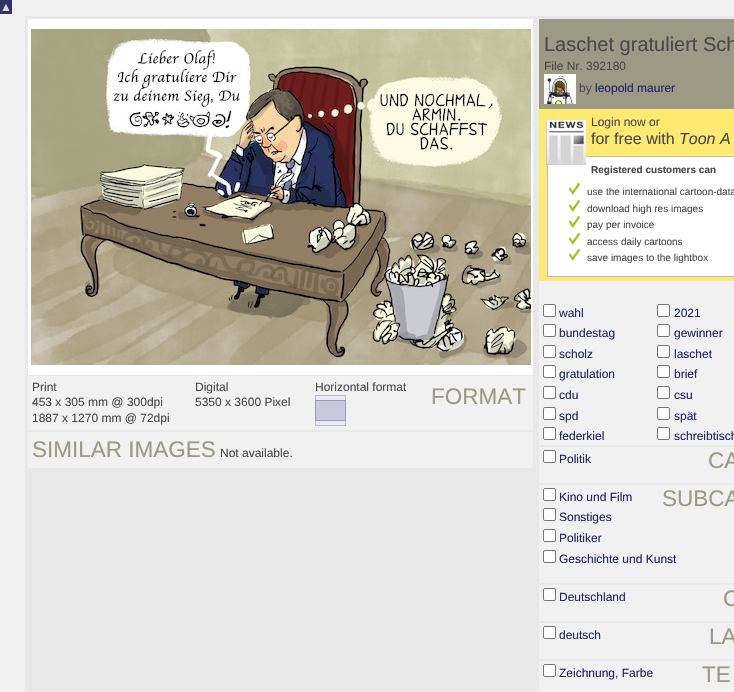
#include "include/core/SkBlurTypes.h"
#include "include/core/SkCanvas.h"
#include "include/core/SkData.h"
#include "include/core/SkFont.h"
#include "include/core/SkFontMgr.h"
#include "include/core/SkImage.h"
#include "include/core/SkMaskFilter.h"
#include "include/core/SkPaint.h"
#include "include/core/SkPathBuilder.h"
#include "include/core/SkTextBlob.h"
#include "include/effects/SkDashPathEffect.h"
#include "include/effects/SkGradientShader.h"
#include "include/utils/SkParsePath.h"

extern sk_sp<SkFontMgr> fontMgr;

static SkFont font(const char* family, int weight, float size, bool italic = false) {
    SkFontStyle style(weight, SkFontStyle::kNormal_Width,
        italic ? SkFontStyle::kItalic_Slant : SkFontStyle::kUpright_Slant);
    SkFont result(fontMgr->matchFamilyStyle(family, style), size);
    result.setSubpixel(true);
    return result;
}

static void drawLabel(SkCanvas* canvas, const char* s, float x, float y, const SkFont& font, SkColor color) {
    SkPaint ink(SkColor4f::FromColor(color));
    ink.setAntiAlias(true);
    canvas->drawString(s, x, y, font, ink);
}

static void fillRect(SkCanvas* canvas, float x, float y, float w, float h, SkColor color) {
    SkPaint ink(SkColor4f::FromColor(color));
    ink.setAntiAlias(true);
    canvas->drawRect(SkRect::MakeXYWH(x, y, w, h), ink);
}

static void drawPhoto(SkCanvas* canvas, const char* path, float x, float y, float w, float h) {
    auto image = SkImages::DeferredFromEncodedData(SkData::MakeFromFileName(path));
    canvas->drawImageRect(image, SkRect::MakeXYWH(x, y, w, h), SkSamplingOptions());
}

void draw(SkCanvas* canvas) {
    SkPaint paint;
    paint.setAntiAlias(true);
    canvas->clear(0xFFF1F1F1);
    fillRect(canvas, 0, 0, 12, 14, 0xFF333366);
    SkFont font1 = font("Liberation Sans", 400, 12);
    drawLabel(canvas, "▲", 0, 11, font1, 0xFFD8D9E5);
    fillRect(canvas, 25, 16, 709, 676, 0xFFE8E8E8);
    fillRect(canvas, 28, 19, 505, 356, 0xFFFFFFFF);
    drawPhoto(canvas, "assets/img1.png", 31, 29, 500, 336);
    fillRect(canvas, 28, 376, 505, 54, 0xFFF1F1F1);
    drawLabel(canvas, "Print", 32, 391, font1, 0xFF494949);
    drawLabel(canvas, "453 x 305 mm @ 300dpi", 32, 406, font1, 0xFF494949);
    drawLabel(canvas, "1887 x 1270 mm @ 72dpi", 32, 422, font1, 0xFF494949);
    drawLabel(canvas, "Digital", 195, 391, font1, 0xFF494949);
    drawLabel(canvas, "5350 x 3600 Pixel", 195, 406, font1, 0xFF494949);
    drawLabel(canvas, "Horizontal format", 315, 391, font1, 0xFF494949);
    drawPhoto(canvas, "assets/img2.png", 315, 395, 31, 31);
    SkFont font2 = font("Liberation Sans", 400, 22.5f);
    drawLabel(canvas, "FORMAT", 431, 404, font2, 0xFF9C9984);
    fillRect(canvas, 28, 432, 505, 36, 0xFFF1F1F1);
    drawLabel(canvas, "SIMILAR IMAGES", 32, 457, font2, 0xFF9C9984);
    drawLabel(canvas, "Not available.", 220, 457, font1, 0xFF494949);
    fillRect(canvas, 539, 19, 195, 90, 0xFF9C9984);
    SkFont font3 = font("Liberation Sans", 400, 20);
    drawLabel(canvas, "Laschet gratuliert Sch", 544, 51, font3, 0xFF494949);
    drawLabel(canvas, "File Nr. 392180", 544, 70, font1, 0xFF494949);
    drawPhoto(canvas, "assets/img3.png", 544, 74, 32, 30);
    drawLabel(canvas, "by", 579, 92, font1, 0xFF494949);
    drawLabel(canvas, "leopold maurer", 595, 92, font1, 0xFF1D246C);
    fillRect(canvas, 539, 109, 195, 172, 0xFFFFE970);
    paint.setColor(0xFFFFFFFF);
    canvas->drawRect(SkRect::MakeXYWH(547.5f, 156.5f, 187, 120), paint);
    paint.setStroke(true);
    paint.setStrokeWidth(1);
    paint.setColor(0xFFB9BBD0);
    canvas->drawRect(SkRect::MakeXYWH(547.5f, 156.5f, 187, 120), paint);
    drawPhoto(canvas, "assets/img4.png", 546, 120, 40, 45);
    drawLabel(canvas, "Login now or", 591, 126, font1, 0xFF494949);
    SkFont font4 = font("Liberation Sans", 400, 16);
    drawLabel(canvas, "for free with", 591, 144, font4, 0xFF494949);
    SkFont font5 = font("Liberation Sans", 400, 16, true);
    drawLabel(canvas, "Toon A", 679, 144, font5, 0xFF494949);
    SkFont font6 = font("Liberation Sans", 700, 10);
    drawLabel(canvas, "Registered customers can", 591, 173, font6, 0xFF494949);
    drawPhoto(canvas, "assets/img5.png", 569, 183, 11, 12);
    SkFont font7 = font("Liberation Sans", 400, 10);
    drawLabel(canvas, "use the international cartoon-data", 587, 195, font7, 0xFF494949);
    drawPhoto(canvas, "assets/img5.png", 569, 200, 11, 12);
    drawLabel(canvas, "download high res images", 587, 212, font7, 0xFF494949);
    drawPhoto(canvas, "assets/img5.png", 569, 216, 11, 12);
    drawLabel(canvas, "pay per invoice", 587, 228, font7, 0xFF494949);
    drawPhoto(canvas, "assets/img5.png", 569, 233, 11, 12);
    drawLabel(canvas, "access daily cartoons", 587, 245, font7, 0xFF494949);
    drawPhoto(canvas, "assets/img5.png", 569, 249, 11, 12);
    drawLabel(canvas, "save images to the lightbox", 587, 261, font7, 0xFF494949);
    fillRect(canvas, 539, 281, 195, 411, 0xFFF1F1F1);
    paint.setStroke(false);
    paint.setColor(0xFFFFFFFF);
    canvas->drawRoundRect(SkRect::MakeXYWH(543.5f, 304.5f, 12, 12), 1.5f, 1.5f, paint);
    paint.setStroke(true);
    paint.setColor(0xFF767676);
    canvas->drawRoundRect(SkRect::MakeXYWH(543.5f, 304.5f, 12, 12), 1.5f, 1.5f, paint);
    drawLabel(canvas, "wahl", 559, 317, font1, 0xFF1D246C);
    paint.setStroke(false);
    paint.setColor(0xFFFFFFFF);
    canvas->drawRoundRect(SkRect::MakeXYWH(657.5f, 304.5f, 12, 12), 1.5f, 1.5f, paint);
    paint.setStroke(true);
    paint.setColor(0xFF767676);
    canvas->drawRoundRect(SkRect::MakeXYWH(657.5f, 304.5f, 12, 12), 1.5f, 1.5f, paint);
    drawLabel(canvas, "2021", 674, 317, font1, 0xFF1D246C);
    paint.setStroke(false);
    paint.setColor(0xFFFFFFFF);
    canvas->drawRoundRect(SkRect::MakeXYWH(543.5f, 324.5f, 12, 12), 1.5f, 1.5f, paint);
    paint.setStroke(true);
    paint.setColor(0xFF767676);
    canvas->drawRoundRect(SkRect::MakeXYWH(543.5f, 324.5f, 12, 12), 1.5f, 1.5f, paint);
    drawLabel(canvas, "bundestag", 559, 337, font1, 0xFF1D246C);
    paint.setStroke(false);
    paint.setColor(0xFFFFFFFF);
    canvas->drawRoundRect(SkRect::MakeXYWH(657.5f, 324.5f, 12, 12), 1.5f, 1.5f, paint);
    paint.setStroke(true);
    paint.setColor(0xFF767676);
    canvas->drawRoundRect(SkRect::MakeXYWH(657.5f, 324.5f, 12, 12), 1.5f, 1.5f, paint);
    drawLabel(canvas, "gewinner", 674, 337, font1, 0xFF1D246C);
    paint.setStroke(false);
    paint.setColor(0xFFFFFFFF);
    canvas->drawRoundRect(SkRect::MakeXYWH(543.5f, 345.5f, 12, 12), 1.5f, 1.5f, paint);
    paint.setStroke(true);
    paint.setColor(0xFF767676);
    canvas->drawRoundRect(SkRect::MakeXYWH(543.5f, 345.5f, 12, 12), 1.5f, 1.5f, paint);
    drawLabel(canvas, "scholz", 559, 358, font1, 0xFF1D246C);
    paint.setStroke(false);
    paint.setColor(0xFFFFFFFF);
    canvas->drawRoundRect(SkRect::MakeXYWH(657.5f, 345.5f, 12, 12), 1.5f, 1.5f, paint);
    paint.setStroke(true);
    paint.setColor(0xFF767676);
    canvas->drawRoundRect(SkRect::MakeXYWH(657.5f, 345.5f, 12, 12), 1.5f, 1.5f, paint);
    drawLabel(canvas, "laschet", 674, 358, font1, 0xFF1D246C);
    paint.setStroke(false);
    paint.setColor(0xFFFFFFFF);
    canvas->drawRoundRect(SkRect::MakeXYWH(543.5f, 365.5f, 12, 12), 1.5f, 1.5f, paint);
    paint.setStroke(true);
    paint.setColor(0xFF767676);
    canvas->drawRoundRect(SkRect::MakeXYWH(543.5f, 365.5f, 12, 12), 1.5f, 1.5f, paint);
    drawLabel(canvas, "gratulation", 559, 378, font1, 0xFF1D246C);
    paint.setStroke(false);
    paint.setColor(0xFFFFFFFF);
    canvas->drawRoundRect(SkRect::MakeXYWH(657.5f, 365.5f, 12, 12), 1.5f, 1.5f, paint);
    paint.setStroke(true);
    paint.setColor(0xFF767676);
    canvas->drawRoundRect(SkRect::MakeXYWH(657.5f, 365.5f, 12, 12), 1.5f, 1.5f, paint);
    drawLabel(canvas, "brief", 674, 378, font1, 0xFF1D246C);
    paint.setStroke(false);
    paint.setColor(0xFFFFFFFF);
    canvas->drawRoundRect(SkRect::MakeXYWH(543.5f, 386.5f, 12, 12), 1.5f, 1.5f, paint);
    paint.setStroke(true);
    paint.setColor(0xFF767676);
    canvas->drawRoundRect(SkRect::MakeXYWH(543.5f, 386.5f, 12, 12), 1.5f, 1.5f, paint);
    drawLabel(canvas, "cdu", 559, 399, font1, 0xFF1D246C);
    paint.setStroke(false);
    paint.setColor(0xFFFFFFFF);
    canvas->drawRoundRect(SkRect::MakeXYWH(657.5f, 386.5f, 12, 12), 1.5f, 1.5f, paint);
    paint.setStroke(true);
    paint.setColor(0xFF767676);
    canvas->drawRoundRect(SkRect::MakeXYWH(657.5f, 386.5f, 12, 12), 1.5f, 1.5f, paint);
    drawLabel(canvas, "csu", 674, 399, font1, 0xFF1D246C);
    paint.setStroke(false);
    paint.setColor(0xFFFFFFFF);
    canvas->drawRoundRect(SkRect::MakeXYWH(543.5f, 407.5f, 12, 12), 1.5f, 1.5f, paint);
    paint.setStroke(true);
    paint.setColor(0xFF767676);
    canvas->drawRoundRect(SkRect::MakeXYWH(543.5f, 407.5f, 12, 12), 1.5f, 1.5f, paint);
    drawLabel(canvas, "spd", 559, 420, font1, 0xFF1D246C);
    paint.setStroke(false);
    paint.setColor(0xFFFFFFFF);
    canvas->drawRoundRect(SkRect::MakeXYWH(657.5f, 407.5f, 12, 12), 1.5f, 1.5f, paint);
    paint.setStroke(true);
    paint.setColor(0xFF767676);
    canvas->drawRoundRect(SkRect::MakeXYWH(657.5f, 407.5f, 12, 12), 1.5f, 1.5f, paint);
    drawLabel(canvas, "spät", 674, 420, font1, 0xFF1D246C);
    paint.setStroke(false);
    paint.setColor(0xFFFFFFFF);
    canvas->drawRoundRect(SkRect::MakeXYWH(543.5f, 427.5f, 12, 12), 1.5f, 1.5f, paint);
    paint.setStroke(true);
    paint.setColor(0xFF767676);
    canvas->drawRoundRect(SkRect::MakeXYWH(543.5f, 427.5f, 12, 12), 1.5f, 1.5f, paint);
    drawLabel(canvas, "federkiel", 559, 440, font1, 0xFF1D246C);
    paint.setStroke(false);
    paint.setColor(0xFFFFFFFF);
    canvas->drawRoundRect(SkRect::MakeXYWH(657.5f, 427.5f, 12, 12), 1.5f, 1.5f, paint);
    paint.setStroke(true);
    paint.setColor(0xFF767676);
    canvas->drawRoundRect(SkRect::MakeXYWH(657.5f, 427.5f, 12, 12), 1.5f, 1.5f, paint);
    drawLabel(canvas, "schreibtisch", 674, 440, font1, 0xFF1D246C);
    fillRect(canvas, 539, 445, 195, 2, 0xFFE8E8E8);
    paint.setStroke(false);
    paint.setColor(0xFFFFFFFF);
    canvas->drawRoundRect(SkRect::MakeXYWH(543.5f, 450.5f, 12, 12), 1.5f, 1.5f, paint);
    paint.setStroke(true);
    paint.setColor(0xFF767676);
    canvas->drawRoundRect(SkRect::MakeXYWH(543.5f, 450.5f, 12, 12), 1.5f, 1.5f, paint);
    drawLabel(canvas, "Politik", 559, 463, font1, 0xFF1D246C);
    drawLabel(canvas, "CA", 708, 468, font2, 0xFF9C9984);
    fillRect(canvas, 539, 483, 195, 2, 0xFFE8E8E8);
    paint.setStroke(false);
    paint.setColor(0xFFFFFFFF);
    canvas->drawRoundRect(SkRect::MakeXYWH(543.5f, 488.5f, 12, 12), 1.5f, 1.5f, paint);
    paint.setStroke(true);
    paint.setColor(0xFF767676);
    canvas->drawRoundRect(SkRect::MakeXYWH(543.5f, 488.5f, 12, 12), 1.5f, 1.5f, paint);
    drawLabel(canvas, "Kino und Film", 559, 501, font1, 0xFF1D246C);
    drawLabel(canvas, "SUBCA", 662, 506, font2, 0xFF9C9984);
    paint.setStroke(false);
    paint.setColor(0xFFFFFFFF);
    canvas->drawRoundRect(SkRect::MakeXYWH(543.5f, 508.5f, 12, 12), 1.5f, 1.5f, paint);
    paint.setStroke(true);
    paint.setColor(0xFF767676);
    canvas->drawRoundRect(SkRect::MakeXYWH(543.5f, 508.5f, 12, 12), 1.5f, 1.5f, paint);
    drawLabel(canvas, "Sonstiges", 559, 521, font1, 0xFF1D246C);
    paint.setStroke(false);
    paint.setColor(0xFFFFFFFF);
    canvas->drawRoundRect(SkRect::MakeXYWH(543.5f, 529.5f, 12, 12), 1.5f, 1.5f, paint);
    paint.setStroke(true);
    paint.setColor(0xFF767676);
    canvas->drawRoundRect(SkRect::MakeXYWH(543.5f, 529.5f, 12, 12), 1.5f, 1.5f, paint);
    drawLabel(canvas, "Politiker", 559, 542, font1, 0xFF1D246C);
    paint.setStroke(false);
    paint.setColor(0xFFFFFFFF);
    canvas->drawRoundRect(SkRect::MakeXYWH(543.5f, 550.5f, 12, 12), 1.5f, 1.5f, paint);
    paint.setStroke(true);
    paint.setColor(0xFF767676);
    canvas->drawRoundRect(SkRect::MakeXYWH(543.5f, 550.5f, 12, 12), 1.5f, 1.5f, paint);
    drawLabel(canvas, "Geschichte und Kunst", 559, 563, font1, 0xFF1D246C);
    fillRect(canvas, 539, 583, 195, 2, 0xFFE8E8E8);
    paint.setStroke(false);
    paint.setColor(0xFFFFFFFF);
    canvas->drawRoundRect(SkRect::MakeXYWH(543.5f, 588.5f, 12, 12), 1.5f, 1.5f, paint);
    paint.setStroke(true);
    paint.setColor(0xFF767676);
    canvas->drawRoundRect(SkRect::MakeXYWH(543.5f, 588.5f, 12, 12), 1.5f, 1.5f, paint);
    drawLabel(canvas, "Deutschland", 559, 601, font1, 0xFF1D246C);
    drawLabel(canvas, "C", 723, 606, font2, 0xFF9C9984);
    fillRect(canvas, 539, 621, 195, 2, 0xFFE8E8E8);
    paint.setStroke(false);
    paint.setColor(0xFFFFFFFF);
    canvas->drawRoundRect(SkRect::MakeXYWH(543.5f, 626.5f, 12, 12), 1.5f, 1.5f, paint);
    paint.setStroke(true);
    paint.setColor(0xFF767676);
    canvas->drawRoundRect(SkRect::MakeXYWH(543.5f, 626.5f, 12, 12), 1.5f, 1.5f, paint);
    drawLabel(canvas, "deutsch", 559, 639, font1, 0xFF1D246C);
    drawLabel(canvas, "LA", 709, 644, font2, 0xFF9C9984);
    fillRect(canvas, 539, 659, 195, 2, 0xFFE8E8E8);
    paint.setStroke(false);
    paint.setColor(0xFFFFFFFF);
    canvas->drawRoundRect(SkRect::MakeXYWH(543.5f, 664.5f, 12, 12), 1.5f, 1.5f, paint);
    paint.setStroke(true);
    paint.setColor(0xFF767676);
    canvas->drawRoundRect(SkRect::MakeXYWH(543.5f, 664.5f, 12, 12), 1.5f, 1.5f, paint);
    drawLabel(canvas, "Zeichnung, Farbe", 559, 677, font1, 0xFF1D246C);
    drawLabel(canvas, "TE", 702, 682, font2, 0xFF9C9984);
}
